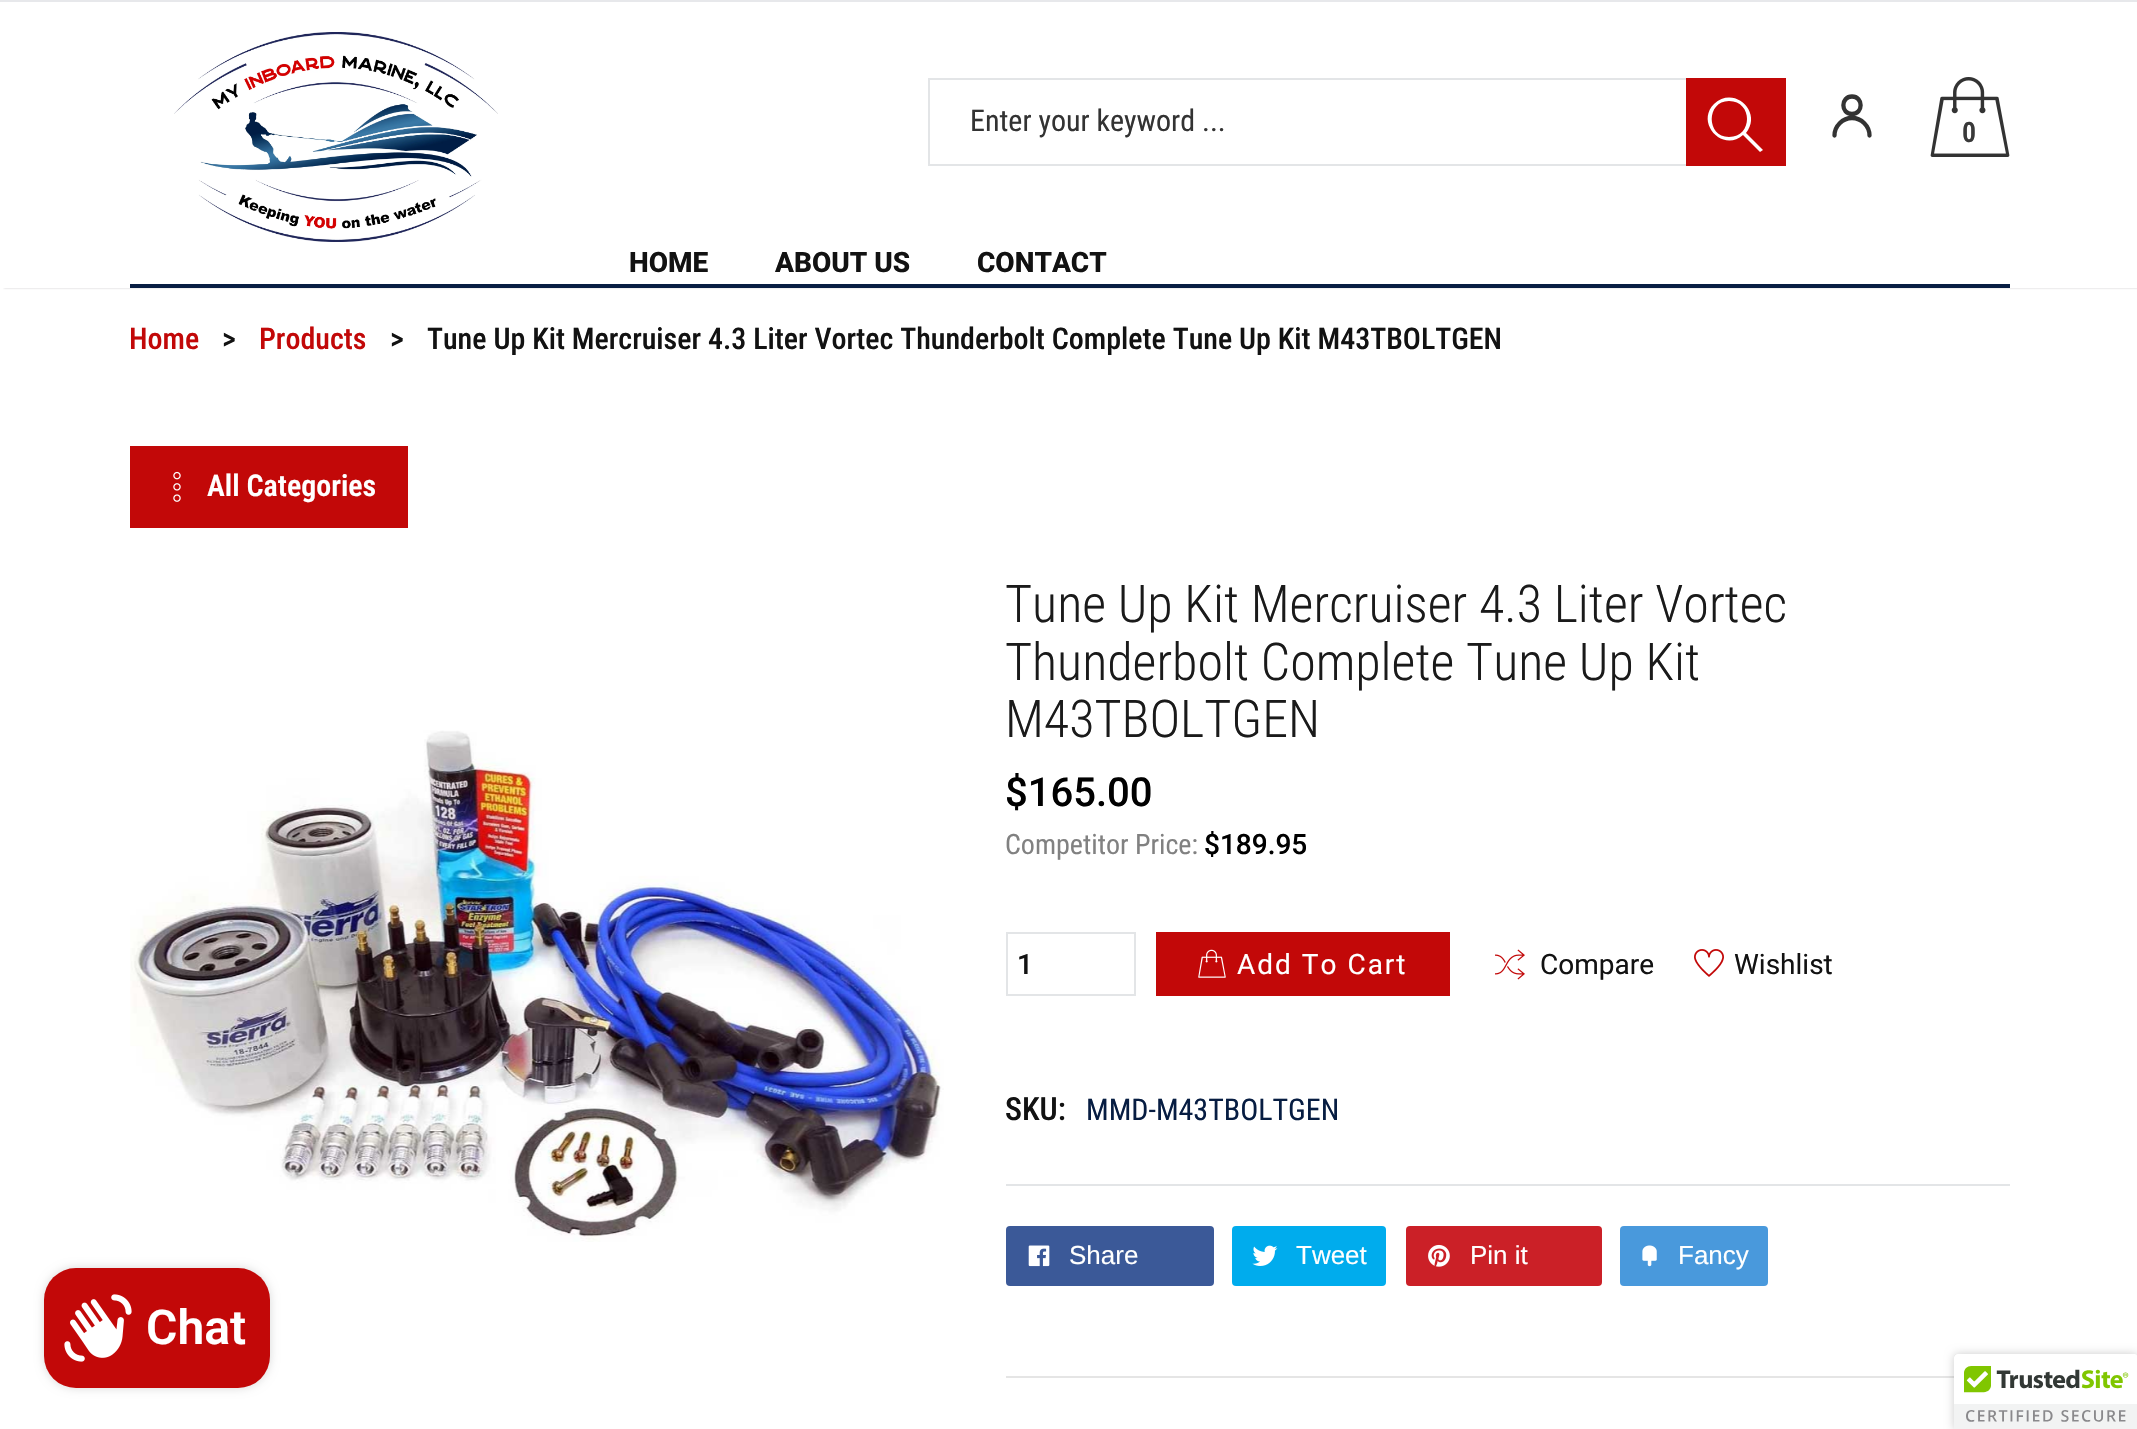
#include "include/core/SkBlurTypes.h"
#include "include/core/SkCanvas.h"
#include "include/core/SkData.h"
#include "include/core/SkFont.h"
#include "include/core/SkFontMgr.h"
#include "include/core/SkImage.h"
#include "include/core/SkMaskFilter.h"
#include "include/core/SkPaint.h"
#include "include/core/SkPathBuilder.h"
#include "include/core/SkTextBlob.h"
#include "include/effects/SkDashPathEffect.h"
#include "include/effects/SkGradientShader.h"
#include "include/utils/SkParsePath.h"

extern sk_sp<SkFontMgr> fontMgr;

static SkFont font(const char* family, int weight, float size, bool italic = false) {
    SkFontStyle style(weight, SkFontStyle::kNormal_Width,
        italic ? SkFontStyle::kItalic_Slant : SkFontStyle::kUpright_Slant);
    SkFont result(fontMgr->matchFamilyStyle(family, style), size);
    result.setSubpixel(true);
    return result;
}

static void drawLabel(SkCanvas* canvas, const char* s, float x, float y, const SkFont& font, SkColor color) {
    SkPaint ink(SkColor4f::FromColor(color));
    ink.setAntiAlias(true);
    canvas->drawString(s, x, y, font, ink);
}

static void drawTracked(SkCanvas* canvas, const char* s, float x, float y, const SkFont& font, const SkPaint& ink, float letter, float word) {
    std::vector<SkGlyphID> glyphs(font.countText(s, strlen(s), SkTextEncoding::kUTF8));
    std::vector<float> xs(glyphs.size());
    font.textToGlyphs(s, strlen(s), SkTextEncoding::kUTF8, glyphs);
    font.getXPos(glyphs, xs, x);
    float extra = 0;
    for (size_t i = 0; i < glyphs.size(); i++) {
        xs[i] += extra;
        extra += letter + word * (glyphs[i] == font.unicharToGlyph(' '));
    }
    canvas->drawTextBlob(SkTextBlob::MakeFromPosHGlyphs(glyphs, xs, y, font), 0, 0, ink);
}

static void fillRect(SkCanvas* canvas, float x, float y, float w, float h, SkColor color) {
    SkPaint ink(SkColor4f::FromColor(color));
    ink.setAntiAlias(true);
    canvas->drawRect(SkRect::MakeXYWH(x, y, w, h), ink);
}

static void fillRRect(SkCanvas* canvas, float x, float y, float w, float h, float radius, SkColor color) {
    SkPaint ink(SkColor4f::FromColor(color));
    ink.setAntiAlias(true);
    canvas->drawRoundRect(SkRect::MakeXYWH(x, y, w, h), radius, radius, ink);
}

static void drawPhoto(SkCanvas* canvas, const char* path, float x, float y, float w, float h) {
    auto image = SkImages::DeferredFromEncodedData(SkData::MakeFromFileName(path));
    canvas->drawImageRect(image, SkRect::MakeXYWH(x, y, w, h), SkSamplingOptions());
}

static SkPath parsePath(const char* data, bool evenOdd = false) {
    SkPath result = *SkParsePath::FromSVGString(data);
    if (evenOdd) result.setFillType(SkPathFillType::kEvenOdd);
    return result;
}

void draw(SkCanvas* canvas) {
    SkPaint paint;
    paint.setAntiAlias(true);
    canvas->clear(0xFFFFFFFF);
    canvas->save();
    canvas->clipRect(SkRect::MakeXYWH(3, 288, 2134, 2));
    paint.setColor(0xFFCCC8CC);
    paint.setMaskFilter(SkMaskFilter::MakeBlur(kNormal_SkBlurStyle, 1));
    canvas->drawRect(SkRect::MakeXYWH(4, 4, 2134, 284), paint);
    paint.setMaskFilter(nullptr);
    canvas->restore();
    fillRect(canvas, 0, 0, 2137, 2, 0xFFE7E8EB);
    drawPhoto(canvas, "assets/img1.png", 174, 32, 324, 210);
    paint.setStroke(true);
    paint.setStrokeWidth(2);
    paint.setColor(0xFFE3E5E7);
    canvas->drawRect(SkRect::MakeXYWH(929, 79, 856, 86), paint);
    SkFont font1 = font("Roboto Condensed", 400, 30);
    drawLabel(canvas, "Enter your keyword ...", 970, 131, font1, 0xFF333333);
    fillRect(canvas, 1686, 78, 100, 88, 0xFFC20808);
    paint.setStroke(false);
    paint.setColor(0xFFFFFFFF);
    canvas->drawPath(parsePath("M1763 150L1746 133C1763 112 1734 85 1714 104C1695 123 1723 153 1743 135L1760 152ZM1729 137C1706 137 1706 101 1729 101C1753 101 1753 137 1729 137Z"), paint);
    paint.setStroke(true);
    paint.setStrokeWidth(4.3f);
    paint.setStrokeCap(SkPaint::kRound_Cap);
    paint.setStrokeJoin(SkPaint::kRound_Join);
    paint.setColor(0xFF333333);
    canvas->drawPath(parsePath("M1869.5 135.5C1869.5 126 1861.5 118 1852 118C1842.5 118 1834.5 126 1834.5 135.5M1852 114C1863.5 114 1863.5 96.5 1852 96.5C1840.5 96.5 1840.5 114 1852 114Z"), paint);
    drawPhoto(canvas, "assets/img2.png", 1930, 77, 80, 80);
    SkFont font2 = font("Roboto Condensed", 600, 28);
    drawLabel(canvas, "0", 1962, 142, font2, 0xFF393939);
    fillRect(canvas, 130, 284, 1880, 4, 0xFF071D42);
    SkFont font3 = font("Roboto", 800, 28);
    drawLabel(canvas, "HOME", 629, 272, font3, 0xFF121212);
    drawLabel(canvas, "ABOUT US", 775, 272, font3, 0xFF121212);
    drawLabel(canvas, "CONTACT", 977, 272, font3, 0xFF121212);
    SkFont font4 = font("Roboto Condensed", 500, 30);
    drawLabel(canvas, "Home", 129, 349, font4, 0xFFC20808);
    drawLabel(canvas, ">", 222, 349, font4, 0xFF121212);
    drawLabel(canvas, "Products", 259, 349, font4, 0xFFC20808);
    drawLabel(canvas, ">", 390, 349, font4, 0xFF121212);
    drawLabel(canvas, "Tune Up Kit Mercruiser 4.3 Liter Vortec Thunderbolt Complete Tune Up Kit M43TBOLTGEN", 427, 349, font4, 0xFF121212);
    fillRect(canvas, 130, 446, 278, 82, 0xFFC20808);
    drawPhoto(canvas, "assets/img3.png", 173, 471, 8, 31);
    SkFont font5 = font("Roboto Condensed", 600, 30);
    drawLabel(canvas, "All Categories", 207, 496, font5, 0xFFFFFFFF);
    drawPhoto(canvas, "assets/img4.png", 130, 730, 814, 512);
    SkFont font6 = font("Roboto Condensed", 300, 52);
    drawLabel(canvas, "Tune Up Kit Mercruiser 4.3 Liter Vortec", 1005, 622, font6, 0xFF1A1A1A);
    drawLabel(canvas, "Thunderbolt Complete Tune Up Kit", 1005, 680, font6, 0xFF1A1A1A);
    drawLabel(canvas, "M43TBOLTGEN", 1005, 737, font6, 0xFF1A1A1A);
    SkFont font7 = font("Roboto", 500, 40);
    drawLabel(canvas, "$165.00", 1005, 806, font7, 0xFF000000);
    SkFont font8 = font("Roboto Condensed", 400, 28);
    drawLabel(canvas, "Competitor Price:", 1005, 854, font8, 0xFF818181);
    SkFont font9 = font("Roboto", 500, 28);
    drawLabel(canvas, "$189.95", 1204, 854, font9, 0xFF000000);
    paint.setStrokeWidth(2);
    paint.setStrokeCap(SkPaint::kButt_Cap);
    paint.setStrokeJoin(SkPaint::kMiter_Join);
    paint.setColor(0xFFE3E5E7);
    canvas->drawRect(SkRect::MakeXYWH(1007, 933, 128, 62), paint);
    drawLabel(canvas, "1", 1017, 974, font9, 0xFF121212);
    fillRect(canvas, 1156, 932, 294, 64, 0xFFC20808);
    drawPhoto(canvas, "assets/img5.png", 1198, 949, 28, 29);
    SkFont font10 = font("Roboto", 400, 28);
    paint.setStroke(false);
    paint.setColor(0xFFFFFFFF);
    drawTracked(canvas, "Add To Cart", 1237, 974, font10, paint, 2, 0);
    drawPhoto(canvas, "assets/img6.png", 1495, 949, 30, 31);
    drawLabel(canvas, "Compare", 1540, 974, font10, 0xFF121212);
    drawPhoto(canvas, "assets/img7.png", 1694, 949, 30, 28);
    drawLabel(canvas, "Wishlist", 1734, 974, font10, 0xFF121212);
    SkFont font11 = font("Roboto Condensed", 500, 32);
    drawLabel(canvas, "SKU:", 1005, 1120, font11, 0xFF121212);
    drawLabel(canvas, "MMD-M43TBOLTGEN", 1086, 1120, font1, 0xFF071D42);
    fillRect(canvas, 1006, 1184, 1004, 2, 0xFFE3E5E7);
    fillRRect(canvas, 1006, 1226, 208, 60, 4, 0xFF3B5998);
    drawPhoto(canvas, "assets/img8.png", 1028, 1245, 22, 22);
    SkFont font12 = font("Liberation Sans", 400, 26);
    drawLabel(canvas, "Share", 1069, 1264, font12, 0xFFFFFFFF);
    fillRRect(canvas, 1232, 1226, 154, 60, 4, 0xFF00ACED);
    drawPhoto(canvas, "assets/img9.png", 1252, 1245, 26, 21);
    drawLabel(canvas, "Tweet", 1296, 1264, font12, 0xFFFFFFFF);
    fillRRect(canvas, 1406, 1226, 196, 60, 4, 0xFFCB2027);
    drawPhoto(canvas, "assets/img10.png", 1428, 1244, 22, 23);
    drawLabel(canvas, "Pin it", 1470, 1264, font12, 0xFFFFFFFF);
    fillRRect(canvas, 1620, 1226, 148, 60, 4, 0xFF4999DC);
    drawPhoto(canvas, "assets/img11.png", 1642, 1245, 15, 22);
    drawLabel(canvas, "Fancy", 1678, 1264, font12, 0xFFFFFFFF);
    fillRect(canvas, 1006, 1376, 948, 2, 0xFFE5E5E5);
    paint.setColor(0x26000000);
    paint.setMaskFilter(SkMaskFilter::MakeBlur(kNormal_SkBlurStyle, 5));
    canvas->drawRoundRect(SkRect::MakeXYWH(44, 1268, 226, 120), 32, 32, paint);
    paint.setMaskFilter(nullptr);
    fillRRect(canvas, 44, 1268, 226, 120, 32, 0xFFC20808);
    drawPhoto(canvas, "assets/img12.png", 64, 1294, 68, 68);
    SkFont font13 = font("Roboto", 600, 48);
    drawLabel(canvas, "Chat", 146, 1344, font13, 0xFFFFFFFF);
    paint.setColor(0x33000000);
    paint.setMaskFilter(SkMaskFilter::MakeBlur(kNormal_SkBlurStyle, 5));
    canvas->drawRoundRect(SkRect::MakeXYWH(1954, 1354, 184, 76), 4, 4, paint);
    paint.setMaskFilter(nullptr);
    paint.setColor(0xFFFFFFFF);
    canvas->drawPath(parsePath("M1958 1354H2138V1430H1954V1358C1954 1356 1956 1354 1958 1354Z"), paint);
    drawPhoto(canvas, "assets/img13.png", 1954, 1354, 183, 75);
}
